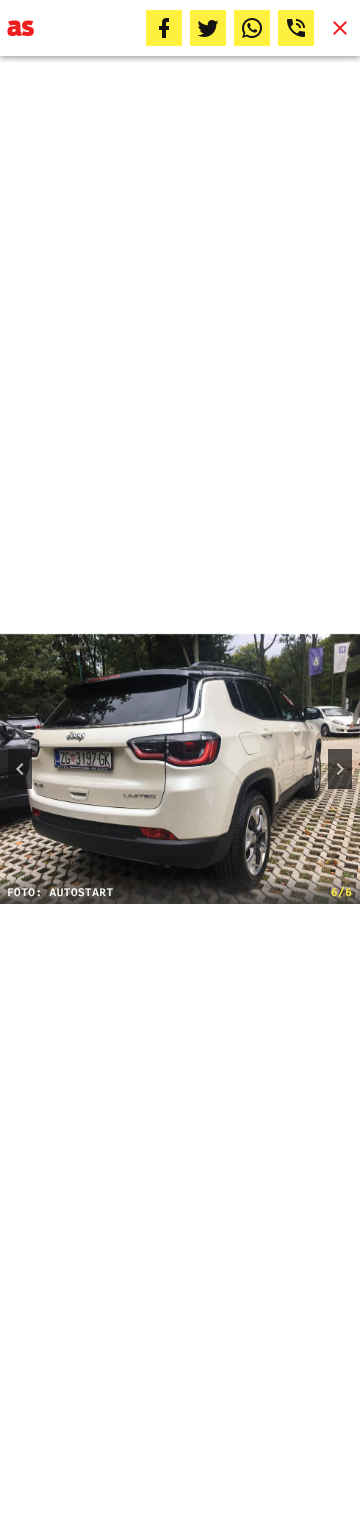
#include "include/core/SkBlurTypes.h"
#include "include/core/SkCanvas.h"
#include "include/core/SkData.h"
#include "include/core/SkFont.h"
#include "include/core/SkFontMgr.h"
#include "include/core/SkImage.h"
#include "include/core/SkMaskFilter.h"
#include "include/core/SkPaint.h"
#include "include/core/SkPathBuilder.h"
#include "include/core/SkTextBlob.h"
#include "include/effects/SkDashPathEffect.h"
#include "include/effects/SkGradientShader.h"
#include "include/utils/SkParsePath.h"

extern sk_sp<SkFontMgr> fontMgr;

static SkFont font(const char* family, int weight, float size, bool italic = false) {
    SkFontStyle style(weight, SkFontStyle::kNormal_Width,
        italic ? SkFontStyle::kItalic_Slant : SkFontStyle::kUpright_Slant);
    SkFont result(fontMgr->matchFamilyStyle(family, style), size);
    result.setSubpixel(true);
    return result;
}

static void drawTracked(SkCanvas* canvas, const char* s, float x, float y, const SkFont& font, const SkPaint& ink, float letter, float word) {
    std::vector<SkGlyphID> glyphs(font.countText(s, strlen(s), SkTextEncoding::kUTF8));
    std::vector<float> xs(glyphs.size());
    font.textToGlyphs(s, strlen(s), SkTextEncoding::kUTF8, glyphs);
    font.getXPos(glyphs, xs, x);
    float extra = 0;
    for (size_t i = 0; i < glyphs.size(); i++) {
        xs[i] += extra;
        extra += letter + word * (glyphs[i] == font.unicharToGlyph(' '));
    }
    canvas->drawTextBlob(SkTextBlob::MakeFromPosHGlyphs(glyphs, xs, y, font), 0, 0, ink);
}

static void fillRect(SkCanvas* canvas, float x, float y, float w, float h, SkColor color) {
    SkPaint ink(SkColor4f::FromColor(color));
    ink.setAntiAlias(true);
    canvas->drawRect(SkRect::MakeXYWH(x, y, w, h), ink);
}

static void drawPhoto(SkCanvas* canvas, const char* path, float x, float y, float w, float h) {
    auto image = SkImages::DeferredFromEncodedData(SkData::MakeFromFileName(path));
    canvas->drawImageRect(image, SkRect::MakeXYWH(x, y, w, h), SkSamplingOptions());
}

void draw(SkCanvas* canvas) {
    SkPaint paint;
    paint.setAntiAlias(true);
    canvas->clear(0xFFFFFFFF);
    canvas->save();
    canvas->clipRect(SkRect::MakeXYWH(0, 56, 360, 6));
    paint.setColor(0x21000000);
    paint.setMaskFilter(SkMaskFilter::MakeBlur(kNormal_SkBlurStyle, 4));
    canvas->drawRect(SkRect::MakeXYWH(0, 2, 360, 56), paint);
    paint.setMaskFilter(nullptr);
    paint.setColor(0x42000000);
    paint.setMaskFilter(SkMaskFilter::MakeBlur(kNormal_SkBlurStyle, 2.5f));
    canvas->drawRect(SkRect::MakeXYWH(0, 2, 360, 56), paint);
    paint.setMaskFilter(nullptr);
    canvas->restore();
    drawPhoto(canvas, "assets/img1.png", 7, 20, 27, 16);
    fillRect(canvas, 146, 10, 36, 36, 0xFFFFEF3E);
    drawPhoto(canvas, "assets/img2.png", 159, 18, 10, 20);
    fillRect(canvas, 190, 10, 36, 36, 0xFFFFEF3E);
    drawPhoto(canvas, "assets/img3.png", 197, 20, 22, 17);
    fillRect(canvas, 234, 10, 36, 36, 0xFFFFEF3E);
    drawPhoto(canvas, "assets/img4.png", 242, 18, 20, 20);
    fillRect(canvas, 278, 10, 36, 36, 0xFFFFEF3E);
    drawPhoto(canvas, "assets/img5.png", 287, 19, 18, 18);
    drawPhoto(canvas, "assets/img6.png", 333, 21, 14, 14);
    drawPhoto(canvas, "assets/img9.png", 0, 633, 360, 271);
    fillRect(canvas, 8, 749, 24, 40, 0xB3141414);
    drawPhoto(canvas, "assets/img7.png", 16, 763, 8, 12);
    fillRect(canvas, 328, 749, 24, 40, 0xB3141414);
    drawPhoto(canvas, "assets/img8.png", 336, 763, 8, 12);
    {
        const SkColor colors[] = {0xCC363636, 0x00363636};
        const float stops[] = {0, 0.16f};
        const SkPoint ends[] = {{180, 904}, {180, 724}};
        paint.setShader(SkGradientShader::MakeLinear(ends, colors, stops, 2, SkTileMode::kClamp));
        paint.setAlpha(255);
    }
    canvas->drawRect(SkRect::MakeXYWH(0, 876, 360, 28), paint);
    SkFont font1 = font("Fira Mono", 500, 11);
    paint.setShader(nullptr);
    paint.setColor(0xFFFFFFFF);
    drawTracked(canvas, "FOTO: AUTOSTART", 7, 896, font1, paint, 0.5f, 0);
    paint.setColor(0xFFFFEF3E);
    drawTracked(canvas, "6/6", 331, 896, font1, paint, 0.5f, 0);
}
